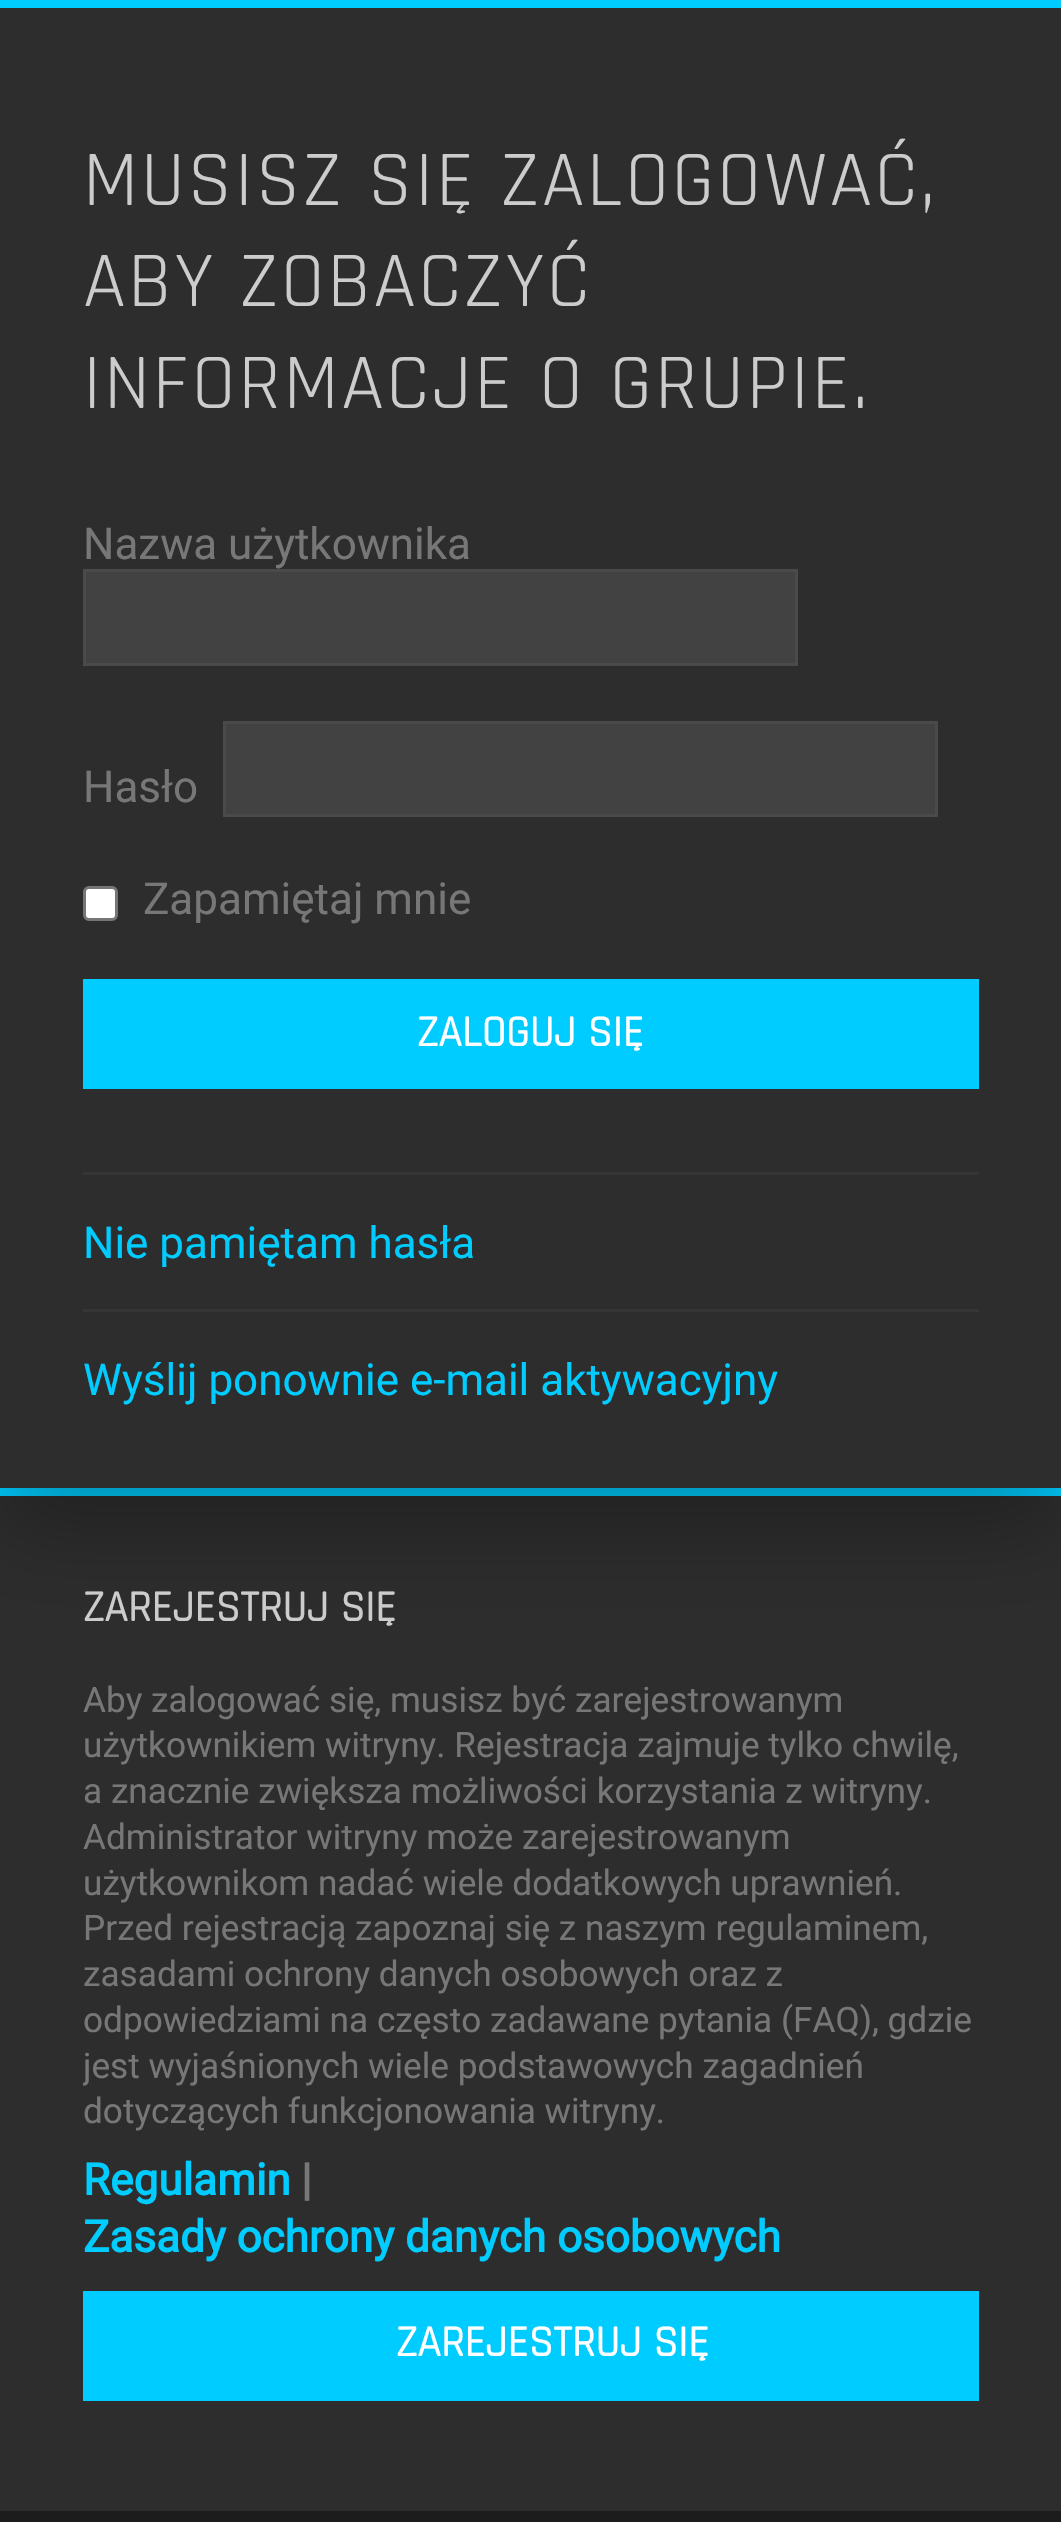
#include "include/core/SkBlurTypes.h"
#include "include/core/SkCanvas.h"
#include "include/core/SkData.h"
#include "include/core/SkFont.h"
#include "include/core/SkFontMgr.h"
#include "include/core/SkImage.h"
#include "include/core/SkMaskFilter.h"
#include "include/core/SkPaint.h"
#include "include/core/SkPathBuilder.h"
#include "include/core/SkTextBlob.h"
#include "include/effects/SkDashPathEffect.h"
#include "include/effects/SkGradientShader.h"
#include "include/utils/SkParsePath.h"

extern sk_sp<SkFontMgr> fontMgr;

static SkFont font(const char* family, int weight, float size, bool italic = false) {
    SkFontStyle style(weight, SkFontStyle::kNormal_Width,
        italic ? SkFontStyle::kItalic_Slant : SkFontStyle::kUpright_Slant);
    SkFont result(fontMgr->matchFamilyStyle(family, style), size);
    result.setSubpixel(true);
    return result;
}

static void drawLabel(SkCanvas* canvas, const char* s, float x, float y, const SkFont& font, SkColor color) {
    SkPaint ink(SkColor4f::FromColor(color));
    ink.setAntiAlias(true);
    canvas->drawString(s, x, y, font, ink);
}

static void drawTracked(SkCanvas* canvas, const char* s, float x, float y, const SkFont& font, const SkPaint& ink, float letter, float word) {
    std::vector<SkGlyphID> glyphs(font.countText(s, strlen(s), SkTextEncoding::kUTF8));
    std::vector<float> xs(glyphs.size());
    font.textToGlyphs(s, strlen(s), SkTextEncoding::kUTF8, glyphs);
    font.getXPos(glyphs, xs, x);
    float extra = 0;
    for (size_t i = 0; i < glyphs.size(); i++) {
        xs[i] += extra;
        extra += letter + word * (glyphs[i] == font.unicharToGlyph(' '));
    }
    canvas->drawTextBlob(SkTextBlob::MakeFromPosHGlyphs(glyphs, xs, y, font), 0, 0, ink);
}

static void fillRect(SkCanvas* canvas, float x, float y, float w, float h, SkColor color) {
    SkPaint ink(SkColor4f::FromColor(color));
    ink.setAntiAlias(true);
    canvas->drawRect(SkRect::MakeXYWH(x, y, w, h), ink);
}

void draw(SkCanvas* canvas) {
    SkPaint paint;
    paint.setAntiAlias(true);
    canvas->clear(0xFF1C1C1C);
    fillRect(canvas, 0, 1488, 1061, 8, 0xFF00CCFF);
    fillRect(canvas, 0, 1496, 1061, 1015, 0xFF2D2D2D);
    paint.setColor(0x45000000);
    paint.setMaskFilter(SkMaskFilter::MakeBlur(kNormal_SkBlurStyle, 41));
    canvas->drawRect(SkRect::MakeXYWH(0, 41, 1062, 1488), paint);
    paint.setMaskFilter(nullptr);
    fillRect(canvas, 0, 0, 1061, 8, 0xFF00CCFF);
    fillRect(canvas, 0, 8, 1061, 1480, 0xFF2D2D2D);
    SkFont font1 = font("Rajdhani", 400, 79.25f);
    paint.setColor(0xFFCCCCCC);
    drawTracked(canvas, "MUSISZ SIĘ ZALOGOWAĆ,", 83, 205, font1, paint, 2.75f, 0);
    drawTracked(canvas, "ABY ZOBACZYĆ", 83, 306, font1, paint, 2.75f, 0);
    drawTracked(canvas, "INFORMACJE O GRUPIE.", 83, 408, font1, paint, 2.75f, 0);
    SkFont font2 = font("Roboto", 400, 44);
    drawLabel(canvas, "Nazwa użytkownika", 83, 559, font2, 0xFF777777);
    paint.setColor(0xFF424242);
    canvas->drawRect(SkRect::MakeXYWH(84.5f, 570.5f, 712, 94), paint);
    paint.setStroke(true);
    paint.setStrokeWidth(3);
    paint.setColor(0xFF4A4A4A);
    canvas->drawRect(SkRect::MakeXYWH(84.5f, 570.5f, 712, 94), paint);
    drawLabel(canvas, "Hasło", 83, 802, font2, 0xFF777777);
    paint.setStroke(false);
    paint.setColor(0xFF424242);
    canvas->drawRect(SkRect::MakeXYWH(224.5f, 722.5f, 712, 93), paint);
    paint.setStroke(true);
    paint.setColor(0xFF4A4A4A);
    canvas->drawRect(SkRect::MakeXYWH(224.5f, 722.5f, 712, 93), paint);
    paint.setStroke(false);
    paint.setColor(0xFFFFFFFF);
    canvas->drawRoundRect(SkRect::MakeXYWH(84.5f, 887.5f, 32, 32), 4.5f, 4.5f, paint);
    paint.setStroke(true);
    paint.setColor(0xFF767676);
    canvas->drawRoundRect(SkRect::MakeXYWH(84.5f, 887.5f, 32, 32), 4.5f, 4.5f, paint);
    drawLabel(canvas, "Zapamiętaj mnie", 143, 914, font2, 0xFF777777);
    fillRect(canvas, 83, 979, 896, 110, 0xFF00CCFF);
    SkFont font3 = font("Rajdhani", 700, 44);
    drawLabel(canvas, "ZALOGUJ SIĘ", 417, 1046, font3, 0xFFFFFFFF);
    fillRect(canvas, 83, 1172, 896, 3, 0xFF353535);
    drawLabel(canvas, "Nie pamiętam hasła", 83, 1258, font2, 0xFF00CCFF);
    fillRect(canvas, 83, 1309, 896, 3, 0xFF353535);
    drawLabel(canvas, "Wyślij ponownie e-mail aktywacyjny", 83, 1395, font2, 0xFF00CCFF);
    drawLabel(canvas, "ZAREJESTRUJ SIĘ", 83, 1621, font3, 0xFFCCCCCC);
    SkFont font4 = font("Roboto", 400, 35.2f);
    drawLabel(canvas, "Aby zalogować się, musisz być zarejestrowanym", 83, 1712, font4, 0xFF777777);
    drawLabel(canvas, "użytkownikiem witryny. Rejestracja zajmuje tylko chwilę,", 83, 1757, font4, 0xFF777777);
    drawLabel(canvas, "a znacznie zwiększa możliwości korzystania z witryny.", 83, 1803, font4, 0xFF777777);
    drawLabel(canvas, "Administrator witryny może zarejestrowanym", 83, 1849, font4, 0xFF777777);
    drawLabel(canvas, "użytkownikom nadać wiele dodatkowych uprawnień.", 83, 1895, font4, 0xFF777777);
    drawLabel(canvas, "Przed rejestracją zapoznaj się z naszym regulaminem,", 83, 1940, font4, 0xFF777777);
    drawLabel(canvas, "zasadami ochrony danych osobowych oraz z", 83, 1986, font4, 0xFF777777);
    drawLabel(canvas, "odpowiedziami na często zadawane pytania (FAQ), gdzie", 83, 2032, font4, 0xFF777777);
    canvas->save();
    canvas->clipRect(SkRect::MakeXYWH(83, 1678, 896, 459));
    drawLabel(canvas, "jest wyjaśnionych wiele podstawowych zagadnień", 83, 2078, font4, 0xFF777777);
    canvas->restore();
    drawLabel(canvas, "dotyczących funkcjonowania witryny.", 83, 2123, font4, 0xFF777777);
    SkFont font5 = font("Roboto", 700, 44);
    drawLabel(canvas, "Regulamin", 83, 2195, font5, 0xFF00CCFF);
    drawLabel(canvas, "|", 301, 2195, font5, 0xFF777777);
    drawLabel(canvas, "Zasady ochrony danych osobowych", 83, 2252, font5, 0xFF00CCFF);
    fillRect(canvas, 83, 2291, 896, 110, 0xFF00CCFF);
    drawLabel(canvas, "ZAREJESTRUJ SIĘ", 396, 2356, font3, 0xFFFFFFFF);
}
